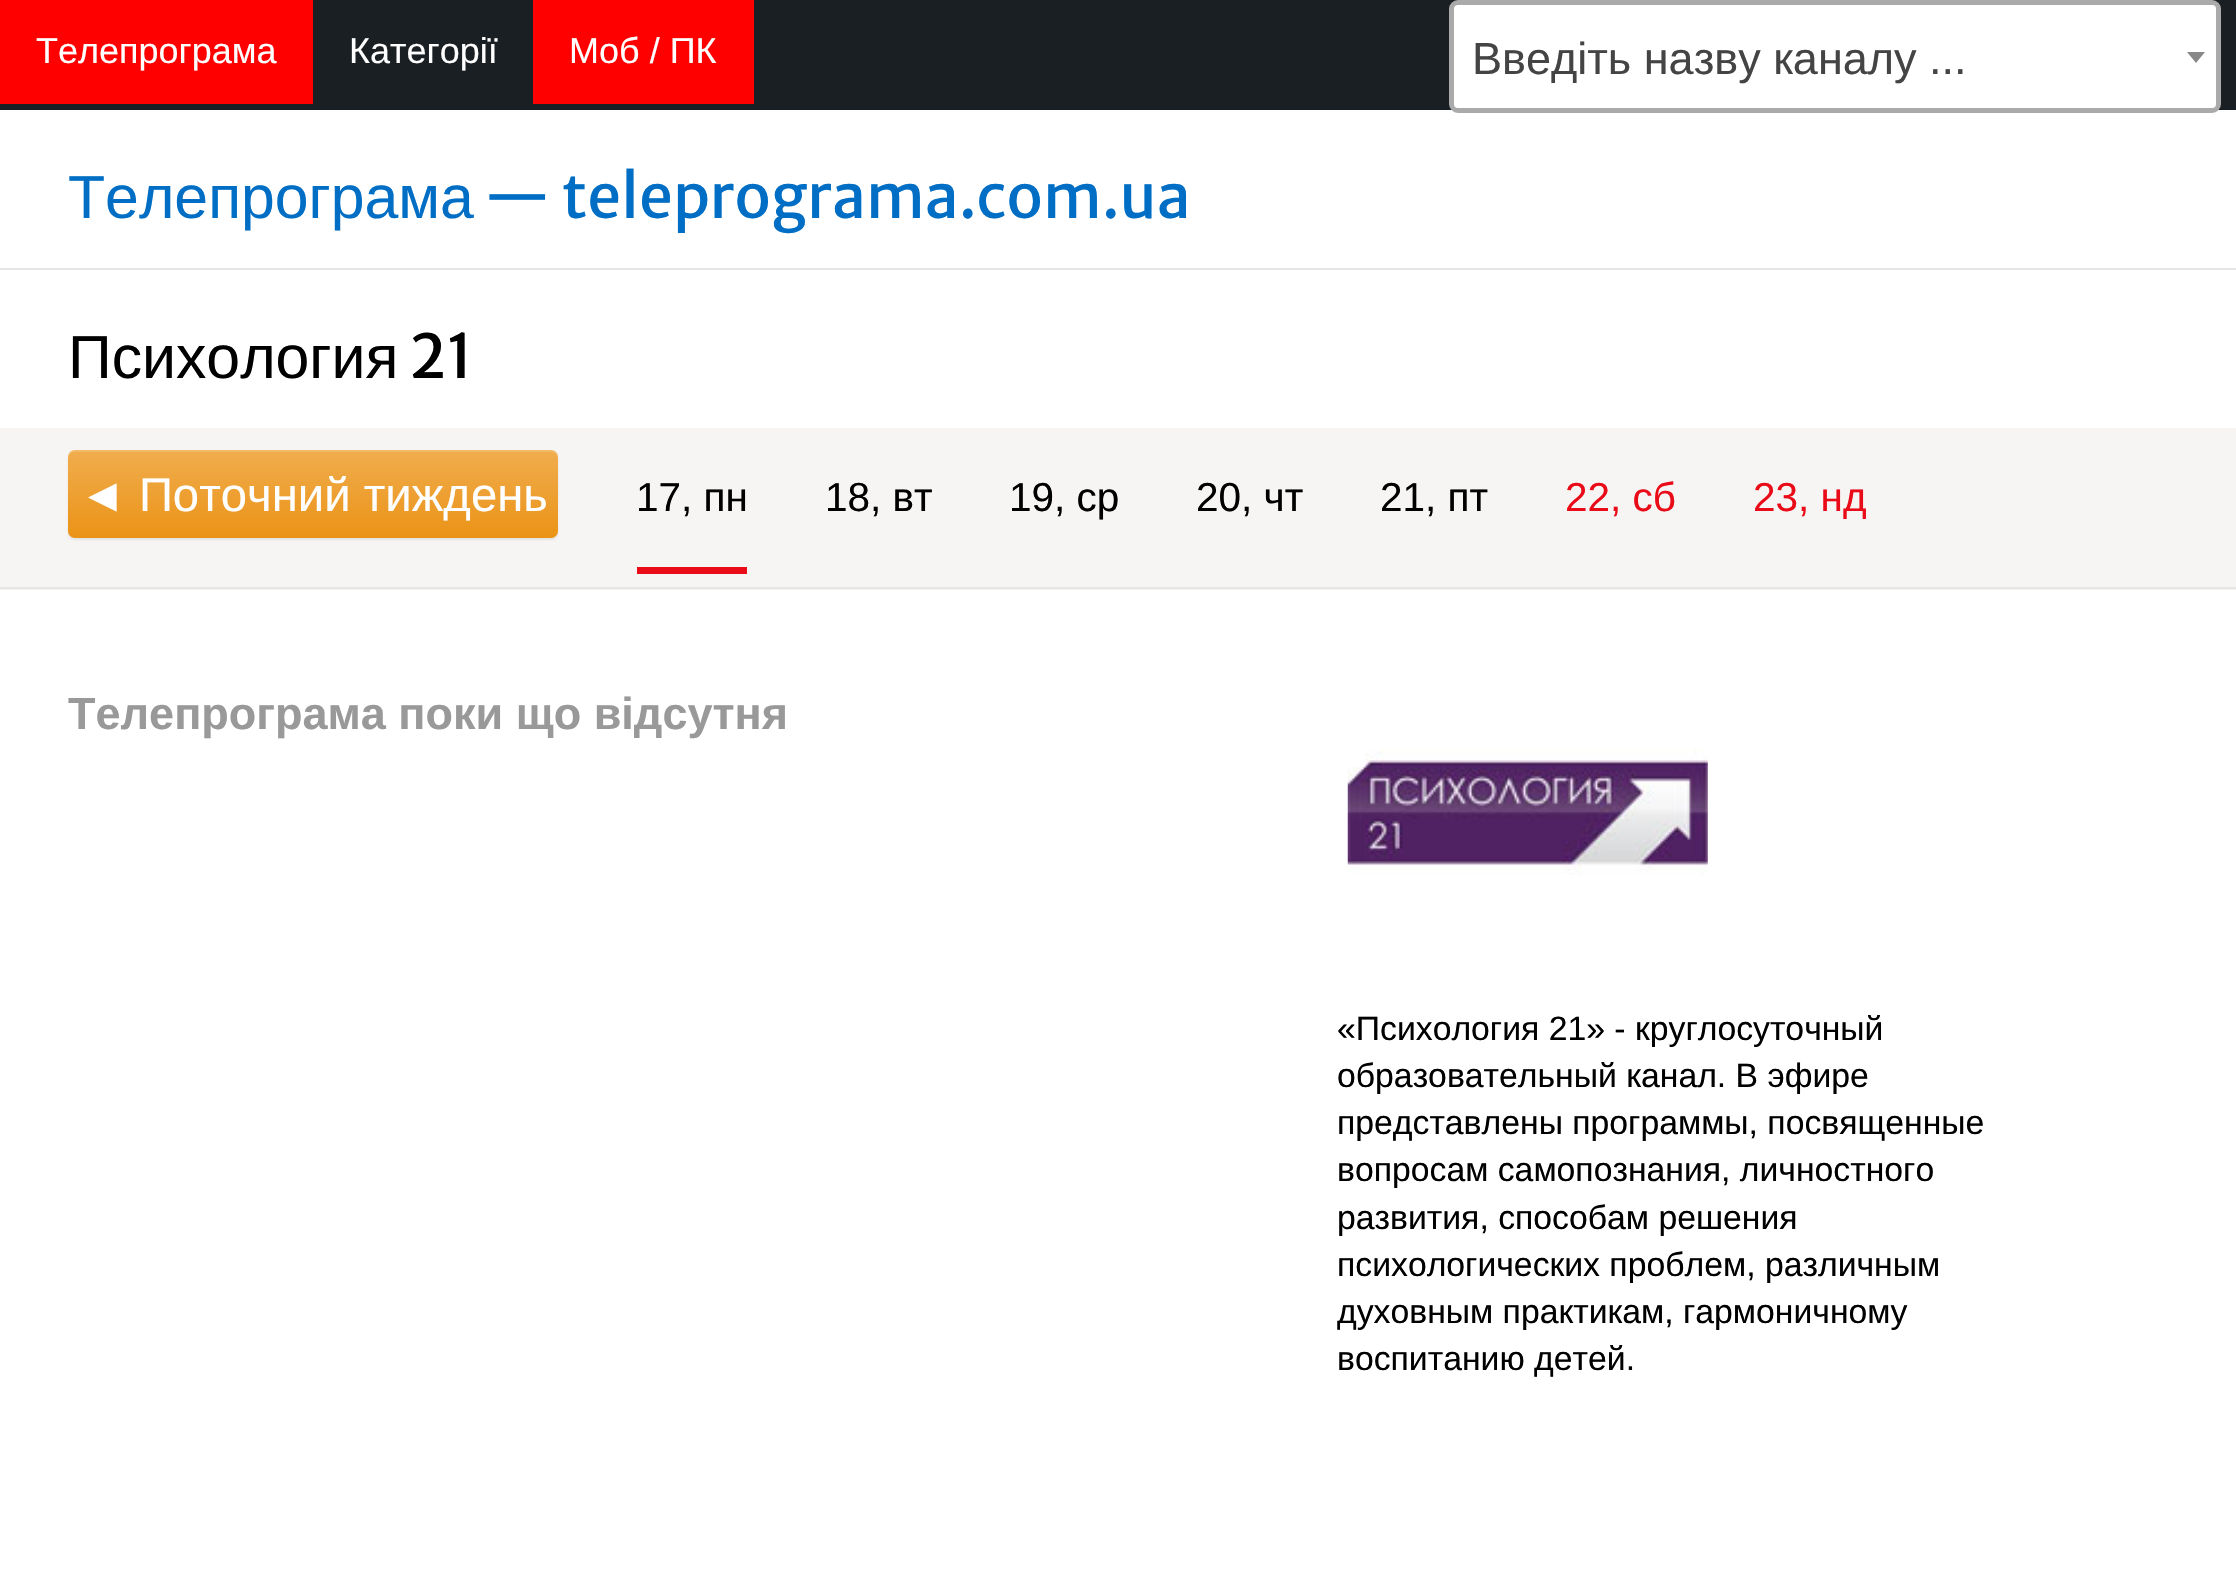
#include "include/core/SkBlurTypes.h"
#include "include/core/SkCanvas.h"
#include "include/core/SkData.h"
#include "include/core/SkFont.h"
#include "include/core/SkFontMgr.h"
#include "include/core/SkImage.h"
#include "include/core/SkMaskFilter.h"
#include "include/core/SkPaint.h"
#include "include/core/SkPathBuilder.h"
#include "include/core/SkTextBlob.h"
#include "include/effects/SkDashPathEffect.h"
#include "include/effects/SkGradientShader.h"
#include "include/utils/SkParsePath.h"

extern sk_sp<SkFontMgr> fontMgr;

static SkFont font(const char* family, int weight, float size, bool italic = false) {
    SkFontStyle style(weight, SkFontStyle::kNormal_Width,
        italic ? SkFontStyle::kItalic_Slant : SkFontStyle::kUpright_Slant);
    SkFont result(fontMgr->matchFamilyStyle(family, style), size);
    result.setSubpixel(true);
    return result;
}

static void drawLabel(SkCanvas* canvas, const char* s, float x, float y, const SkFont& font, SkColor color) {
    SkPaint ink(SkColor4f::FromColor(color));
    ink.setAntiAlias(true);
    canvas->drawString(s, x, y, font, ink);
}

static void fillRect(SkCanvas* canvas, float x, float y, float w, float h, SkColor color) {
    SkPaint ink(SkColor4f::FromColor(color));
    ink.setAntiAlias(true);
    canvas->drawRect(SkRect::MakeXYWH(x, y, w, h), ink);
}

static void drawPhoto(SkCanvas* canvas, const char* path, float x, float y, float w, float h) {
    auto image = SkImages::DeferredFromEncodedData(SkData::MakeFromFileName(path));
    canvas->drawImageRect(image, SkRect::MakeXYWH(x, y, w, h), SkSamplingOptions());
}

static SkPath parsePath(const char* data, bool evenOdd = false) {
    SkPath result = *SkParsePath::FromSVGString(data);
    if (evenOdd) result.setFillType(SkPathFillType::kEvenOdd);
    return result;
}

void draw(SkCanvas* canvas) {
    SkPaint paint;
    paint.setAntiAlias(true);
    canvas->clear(0xFFFFFFFF);
    fillRect(canvas, 0, 0, 2236, 110, 0xFF1A1F24);
    fillRect(canvas, 0, 0, 313, 104, 0xFFFF0000);
    SkFont font1 = font("Liberation Sans", 400, 36);
    drawLabel(canvas, "Телепрограма", 36, 63, font1, 0xFFFFFFFF);
    drawLabel(canvas, "Категорії", 349, 63, font1, 0xFFFFFFFF);
    fillRect(canvas, 533, 0, 221, 104, 0xFFFF0000);
    drawLabel(canvas, "Моб / ПК", 569, 63, font1, 0xFFFFFFFF);
    paint.setColor(0xFFFFFFFF);
    canvas->drawRoundRect(SkRect::MakeXYWH(1451.5f, 2.5f, 767, 108), 6.5f, 6.5f, paint);
    paint.setStroke(true);
    paint.setStrokeWidth(5);
    paint.setColor(0xFFAAAAAA);
    canvas->drawRoundRect(SkRect::MakeXYWH(1451.5f, 2.5f, 767, 108), 6.5f, 6.5f, paint);
    SkFont font2 = font("Liberation Sans", 400, 45);
    drawLabel(canvas, "Введіть назву каналу ...", 1472, 74, font2, 0xFF444444);
    paint.setStroke(false);
    paint.setColor(0xFF888888);
    canvas->drawPath(parsePath("M2187 52H2205L2196 63Z"), paint);
    fillRect(canvas, 0, 268, 2236, 2, 0xFFE6E6E6);
    SkFont font3 = font("Liberation Sans", 400, 60.75f);
    drawLabel(canvas, "Телепрограма", 68, 218, font3, 0xFF006EC4);
    SkFont font4 = font("Merriweather Sans", 400, 60.75f);
    drawLabel(canvas, "— teleprograma.com.ua", 484, 218, font4, 0xFF006EC4);
    drawLabel(canvas, "Психология", 68, 378, font3, 0xFF000000);
    drawLabel(canvas, "21", 409, 378, font4, 0xFF000000);
    fillRect(canvas, 0, 428, 2236, 162, 0xFFF6F5F3);
    fillRect(canvas, 0, 587, 2236, 2, 0xFFE6E6E6);
    paint.setColor(0x12000000);
    paint.setMaskFilter(SkMaskFilter::MakeBlur(kNormal_SkBlurStyle, 1));
    canvas->drawRoundRect(SkRect::MakeXYWH(68, 452, 490, 88), 7, 7, paint);
    paint.setMaskFilter(nullptr);
    {
        const SkColor colors[] = {0xFFF0AD4E, 0xFFEB9316};
        const float stops[] = {0, 1};
        const SkPoint ends[] = {{313, 450}, {313, 538}};
        paint.setShader(SkGradientShader::MakeLinear(ends, colors, stops, 2, SkTileMode::kClamp));
        paint.setAlpha(255);
    }
    canvas->drawRoundRect(SkRect::MakeXYWH(68, 450, 490, 88), 7, 7, paint);
    SkFont font5 = font("Liberation Sans", 400, 47.25f);
    drawLabel(canvas, "◄ Поточний тиждень", 79, 511, font5, 0xFFFFFFFF);
    paint.setShader(nullptr);
    paint.setColor(0x26FFFFFF);
    canvas->drawPath(parsePath("M74 452H551C555 452 558 455 558 459V457C558 453 555 450 551 450H75C71 450 68 453 68 457V459C68 455 71 452 74 452Z"), paint);
    fillRect(canvas, 637, 567, 110, 7, 0xFFEA0B19);
    SkFont font6 = font("Liberation Sans", 400, 40.5f);
    drawLabel(canvas, "17, пн", 636, 511, font6, 0xFF000000);
    drawLabel(canvas, "18, вт", 825, 511, font6, 0xFF000000);
    drawLabel(canvas, "19, ср", 1009, 511, font6, 0xFF000000);
    drawLabel(canvas, "20, чт", 1196, 511, font6, 0xFF000000);
    drawLabel(canvas, "21, пт", 1380, 511, font6, 0xFF000000);
    drawLabel(canvas, "22, сб", 1565, 511, font6, 0xFFEA0B19);
    drawLabel(canvas, "23, нд", 1753, 511, font6, 0xFFEA0B19);
    SkFont font7 = font("Liberation Sans", 700, 45);
    drawLabel(canvas, "Телепрограма поки що відсутня", 68, 729, font7, 0xFF999999);
    drawPhoto(canvas, "assets/img1.png", 1347, 749, 361, 126);
    SkFont font8 = font("Liberation Sans", 400, 33.75f);
    drawLabel(canvas, "«Психология 21» - круглосуточный", 1337, 1040, font8, 0xFF000000);
    drawLabel(canvas, "образовательный канал. В эфире", 1337, 1087, font8, 0xFF000000);
    drawLabel(canvas, "представлены программы, посвященные", 1337, 1134, font8, 0xFF000000);
    drawLabel(canvas, "вопросам самопознания, личностного", 1337, 1181, font8, 0xFF000000);
    drawLabel(canvas, "развития, способам решения", 1337, 1229, font8, 0xFF000000);
    drawLabel(canvas, "психологических проблем, различным", 1337, 1276, font8, 0xFF000000);
    drawLabel(canvas, "духовным практикам, гармоничному", 1337, 1323, font8, 0xFF000000);
    drawLabel(canvas, "воспитанию детей.", 1337, 1370, font8, 0xFF000000);
}
